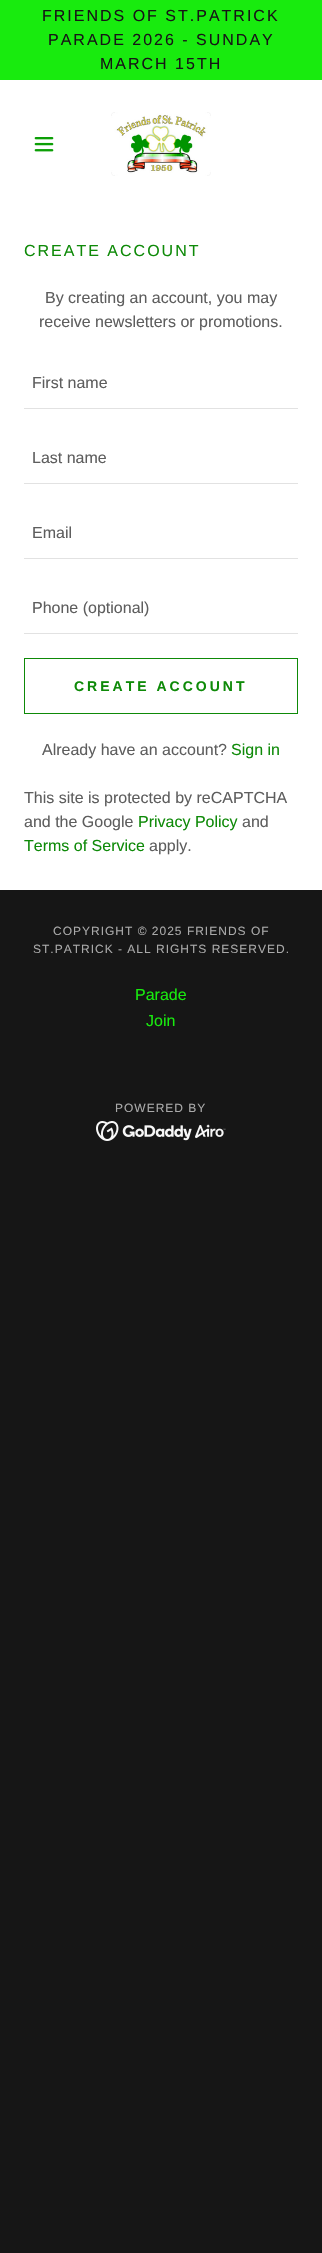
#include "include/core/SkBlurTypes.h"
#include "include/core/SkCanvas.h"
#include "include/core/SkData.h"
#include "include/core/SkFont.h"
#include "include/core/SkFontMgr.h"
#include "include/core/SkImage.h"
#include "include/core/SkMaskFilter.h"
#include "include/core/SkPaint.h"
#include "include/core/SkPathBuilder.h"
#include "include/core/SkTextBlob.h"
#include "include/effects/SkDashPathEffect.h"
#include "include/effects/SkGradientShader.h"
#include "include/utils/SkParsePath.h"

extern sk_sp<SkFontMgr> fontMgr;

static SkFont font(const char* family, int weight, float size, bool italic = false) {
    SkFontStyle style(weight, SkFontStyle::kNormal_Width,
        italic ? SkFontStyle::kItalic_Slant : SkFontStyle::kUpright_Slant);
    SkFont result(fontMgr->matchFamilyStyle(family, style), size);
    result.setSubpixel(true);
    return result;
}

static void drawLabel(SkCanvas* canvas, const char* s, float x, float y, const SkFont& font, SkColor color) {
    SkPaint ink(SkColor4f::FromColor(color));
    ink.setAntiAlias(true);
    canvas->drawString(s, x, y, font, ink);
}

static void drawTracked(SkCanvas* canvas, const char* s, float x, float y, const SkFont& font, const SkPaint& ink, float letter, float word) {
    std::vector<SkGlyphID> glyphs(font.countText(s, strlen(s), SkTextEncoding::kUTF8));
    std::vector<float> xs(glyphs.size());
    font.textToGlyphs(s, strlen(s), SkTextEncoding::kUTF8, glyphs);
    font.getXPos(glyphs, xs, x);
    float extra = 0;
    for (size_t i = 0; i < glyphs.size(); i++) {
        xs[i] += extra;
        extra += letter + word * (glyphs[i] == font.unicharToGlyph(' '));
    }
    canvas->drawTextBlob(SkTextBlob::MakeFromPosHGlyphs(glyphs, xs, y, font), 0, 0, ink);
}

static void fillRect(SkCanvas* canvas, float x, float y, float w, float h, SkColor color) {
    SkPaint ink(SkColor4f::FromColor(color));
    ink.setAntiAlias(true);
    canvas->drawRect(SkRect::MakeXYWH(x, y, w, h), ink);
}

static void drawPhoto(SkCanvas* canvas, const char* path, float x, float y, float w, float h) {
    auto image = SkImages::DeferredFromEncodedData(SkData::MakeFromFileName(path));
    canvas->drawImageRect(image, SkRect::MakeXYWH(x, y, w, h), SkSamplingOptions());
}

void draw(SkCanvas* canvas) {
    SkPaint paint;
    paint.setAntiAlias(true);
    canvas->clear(0xFF161616);
    fillRect(canvas, 0, 80, 322, 810, 0xFFFFFFFF);
    fillRect(canvas, 0, 0, 322, 80, 0xFF18EB0E);
    SkFont font1 = font("Liberation Sans", 400, 16);
    paint.setColor(0xFF161616);
    drawTracked(canvas, "FRIENDS OF ST.PATRICK", 42, 21, font1, paint, 2, 0);
    drawTracked(canvas, "PARADE 2026 - SUNDAY", 48, 45, font1, paint, 2, 0);
    drawTracked(canvas, "MARCH 15TH", 100, 69, font1, paint, 2, 0);
    drawPhoto(canvas, "assets/img1.png", 34, 137, 20, 15);
    drawPhoto(canvas, "assets/img2.png", 111, 112, 100, 64);
    paint.setColor(0xFF0E8A08);
    drawTracked(canvas, "CREATE ACCOUNT", 24, 256, font1, paint, 2, 0);
    drawLabel(canvas, "By creating an account, you may", 45, 303, font1, 0xFF5E5E5E);
    drawLabel(canvas, "receive newsletters or promotions.", 39, 327, font1, 0xFF5E5E5E);
    fillRect(canvas, 24, 408, 274, 1, 0xFFE2E2E2);
    drawLabel(canvas, "First name", 32, 388, font1, 0xFF5E5E5E);
    fillRect(canvas, 24, 483, 274, 1, 0xFFE2E2E2);
    drawLabel(canvas, "Last name", 32, 463, font1, 0xFF5E5E5E);
    fillRect(canvas, 24, 558, 274, 1, 0xFFE2E2E2);
    drawLabel(canvas, "Email", 32, 538, font1, 0xFF5E5E5E);
    fillRect(canvas, 24, 633, 274, 1, 0xFFE2E2E2);
    drawLabel(canvas, "Phone (optional)", 32, 613, font1, 0xFF5E5E5E);
    paint.setStroke(true);
    paint.setStrokeWidth(1);
    canvas->drawRect(SkRect::MakeXYWH(24.5f, 658.5f, 273, 55), paint);
    SkFont font2 = font("Liberation Sans", 700, 14);
    paint.setStroke(false);
    drawTracked(canvas, "CREATE ACCOUNT", 74, 691, font2, paint, 3, 0);
    drawLabel(canvas, "Already have an account?", 42, 755, font1, 0xFF5E5E5E);
    drawLabel(canvas, "Sign in", 231, 755, font1, 0xFF0E8A08);
    drawLabel(canvas, "This site is protected by reCAPTCHA", 24, 803, font1, 0xFF5E5E5E);
    drawLabel(canvas, "and the Google", 24, 827, font1, 0xFF5E5E5E);
    drawLabel(canvas, "Privacy Policy", 138, 827, font1, 0xFF0E8A08);
    drawLabel(canvas, "and", 242, 827, font1, 0xFF5E5E5E);
    drawLabel(canvas, "Terms of Service", 24, 851, font1, 0xFF0E8A08);
    drawLabel(canvas, "apply.", 149, 851, font1, 0xFF5E5E5E);
    SkFont font3 = font("Liberation Sans", 400, 12);
    paint.setColor(0xFFA9A9A9);
    drawTracked(canvas, "COPYRIGHT © 2025 FRIENDS OF", 53, 935, font3, paint, 1, 0);
    drawTracked(canvas, "ST.PATRICK - ALL RIGHTS RESERVED.", 33, 953, font3, paint, 1, 0);
    drawLabel(canvas, "Parade", 135, 1000, font1, 0xFF18EB0E);
    drawLabel(canvas, "Join", 146, 1026, font1, 0xFF18EB0E);
    drawTracked(canvas, "POWERED BY", 115, 1112, font3, paint, 1, 0);
    drawPhoto(canvas, "assets/img3.png", 96, 1121, 130, 20);
}
